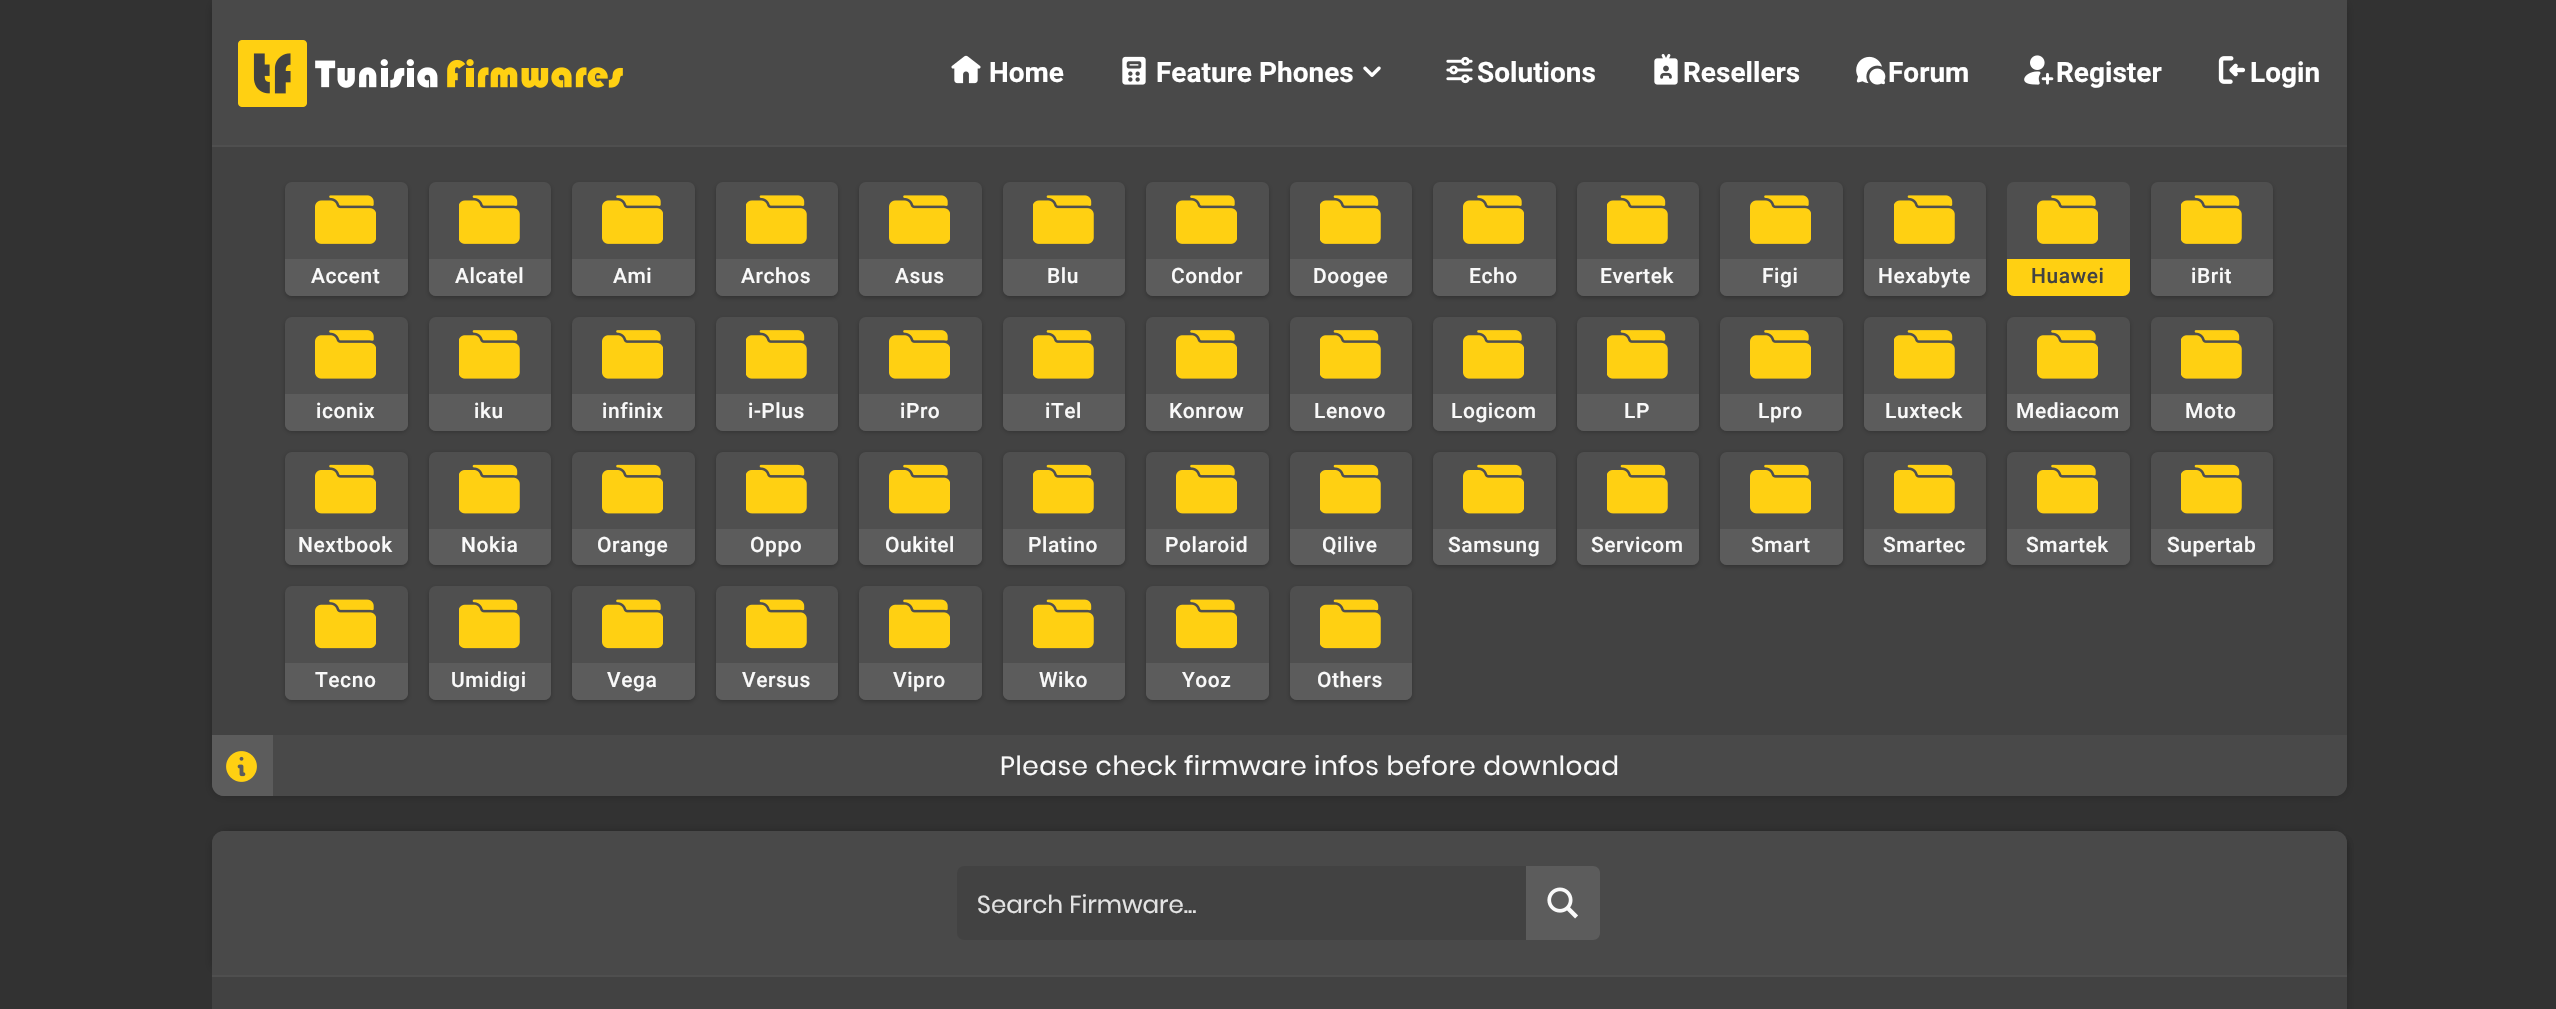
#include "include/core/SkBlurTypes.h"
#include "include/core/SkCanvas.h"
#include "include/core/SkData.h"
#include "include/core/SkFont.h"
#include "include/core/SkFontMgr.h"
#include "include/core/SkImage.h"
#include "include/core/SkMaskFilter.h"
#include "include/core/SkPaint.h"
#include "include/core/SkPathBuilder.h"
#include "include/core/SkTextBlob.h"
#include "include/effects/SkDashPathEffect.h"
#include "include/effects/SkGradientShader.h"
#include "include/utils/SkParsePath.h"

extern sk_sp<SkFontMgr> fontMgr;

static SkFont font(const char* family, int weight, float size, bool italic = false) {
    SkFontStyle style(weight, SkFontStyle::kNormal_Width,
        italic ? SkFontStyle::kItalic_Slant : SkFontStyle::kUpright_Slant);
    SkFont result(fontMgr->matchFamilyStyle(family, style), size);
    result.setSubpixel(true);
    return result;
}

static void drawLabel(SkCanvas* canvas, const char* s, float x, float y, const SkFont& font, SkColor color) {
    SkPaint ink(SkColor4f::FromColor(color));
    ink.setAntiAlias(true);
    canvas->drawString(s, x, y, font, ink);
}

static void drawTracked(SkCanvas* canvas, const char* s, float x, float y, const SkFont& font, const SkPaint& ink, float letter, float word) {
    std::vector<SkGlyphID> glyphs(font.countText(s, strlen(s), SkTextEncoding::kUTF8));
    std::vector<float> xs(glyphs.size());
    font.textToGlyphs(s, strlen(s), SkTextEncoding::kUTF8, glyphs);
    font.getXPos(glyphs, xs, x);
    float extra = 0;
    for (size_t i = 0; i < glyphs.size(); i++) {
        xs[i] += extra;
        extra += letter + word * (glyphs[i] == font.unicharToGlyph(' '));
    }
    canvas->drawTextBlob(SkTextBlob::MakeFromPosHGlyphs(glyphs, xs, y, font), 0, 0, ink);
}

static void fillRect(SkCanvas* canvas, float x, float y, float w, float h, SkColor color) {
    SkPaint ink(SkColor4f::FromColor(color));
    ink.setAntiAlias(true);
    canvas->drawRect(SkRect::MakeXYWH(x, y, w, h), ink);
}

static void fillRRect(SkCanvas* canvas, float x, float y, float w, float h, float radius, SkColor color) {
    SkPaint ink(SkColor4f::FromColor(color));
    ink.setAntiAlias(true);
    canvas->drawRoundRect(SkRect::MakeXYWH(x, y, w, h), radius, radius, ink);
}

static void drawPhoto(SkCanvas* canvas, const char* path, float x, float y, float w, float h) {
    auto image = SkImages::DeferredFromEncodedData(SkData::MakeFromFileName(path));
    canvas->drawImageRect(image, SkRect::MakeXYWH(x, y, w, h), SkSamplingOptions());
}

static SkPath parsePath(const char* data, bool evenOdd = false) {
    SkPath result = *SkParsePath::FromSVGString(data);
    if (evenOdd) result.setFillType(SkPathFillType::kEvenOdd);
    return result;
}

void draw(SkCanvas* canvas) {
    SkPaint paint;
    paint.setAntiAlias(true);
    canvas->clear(0xFF323232);
    paint.setColor(0x33000000);
    paint.setMaskFilter(SkMaskFilter::MakeBlur(kNormal_SkBlurStyle, 4.5f));
    canvas->drawRoundRect(SkRect::MakeXYWH(212, 0, 2135, 796), 12, 12, paint);
    paint.setMaskFilter(nullptr);
    paint.setColor(0xFF424242);
    canvas->drawPath(parsePath("M212 0H2347V784C2347 790.5 2341.5 796 2335 796H224C217.5 796 212 790.5 212 784Z"), paint);
    fillRect(canvas, 212, 0, 2135, 145, 0xFF494949);
    fillRect(canvas, 212, 145, 2135, 2, 0xFF4F4F4F);
    drawPhoto(canvas, "assets/img1.png", 238, 40, 385, 67);
    drawPhoto(canvas, "assets/img2.png", 951, 55, 30, 29);
    SkFont font1 = font("Roboto", 700, 28);
    drawLabel(canvas, "Home", 989, 82, font1, 0xFFFFFFFF);
    drawPhoto(canvas, "assets/img3.png", 1122, 56, 24, 29);
    drawLabel(canvas, "Feature Phones", 1156, 82, font1, 0xFFFFFFFF);
    drawPhoto(canvas, "assets/img4.png", 1363, 66, 18, 11);
    drawPhoto(canvas, "assets/img5.png", 1446, 56, 27, 28);
    drawLabel(canvas, "Solutions", 1477, 82, font1, 0xFFFFFFFF);
    drawPhoto(canvas, "assets/img6.png", 1654, 54, 24, 31);
    drawLabel(canvas, "Resellers", 1683, 82, font1, 0xFFFFFFFF);
    drawPhoto(canvas, "assets/img7.png", 1856, 56, 30, 29);
    drawLabel(canvas, "Forum", 1888, 82, font1, 0xFFFFFFFF);
    drawPhoto(canvas, "assets/img8.png", 2024, 55, 30, 30);
    drawLabel(canvas, "Register", 2056, 82, font1, 0xFFFFFFFF);
    drawPhoto(canvas, "assets/img9.png", 2218, 56, 28, 28);
    drawLabel(canvas, "Login", 2250, 82, font1, 0xFFFFFFFF);
    paint.setColor(0x3D000000);
    paint.setMaskFilter(SkMaskFilter::MakeBlur(kNormal_SkBlurStyle, 2));
    canvas->drawRoundRect(SkRect::MakeXYWH(285, 184, 123, 114), 7, 7, paint);
    paint.setMaskFilter(nullptr);
    fillRRect(canvas, 285, 182, 123, 114, 7, 0xFF4F4F4F);
    drawPhoto(canvas, "assets/img10.png", 315, 195, 61, 49);
    paint.setColor(0xFF5C5C5C);
    canvas->drawPath(parsePath("M285 259H408V289C408 293 405 296 401 296H292C288 296 285 293 285 289Z"), paint);
    SkFont font2 = font("Roboto", 500, 21);
    paint.setColor(0xFFF9F9F9);
    drawTracked(canvas, "Accent", 311, 283, font2, paint, 0.55f, 0);
    paint.setColor(0x3D000000);
    paint.setMaskFilter(SkMaskFilter::MakeBlur(kNormal_SkBlurStyle, 2));
    canvas->drawRoundRect(SkRect::MakeXYWH(429, 184, 122, 114), 7, 7, paint);
    paint.setMaskFilter(nullptr);
    fillRRect(canvas, 429, 182, 122, 114, 7, 0xFF4F4F4F);
    drawPhoto(canvas, "assets/img11.png", 459, 195, 61, 49);
    paint.setColor(0xFF5C5C5C);
    canvas->drawPath(parsePath("M429 259H551V289C551 293 548 296 544 296H436C432 296 429 293 429 289Z"), paint);
    paint.setColor(0xFFF9F9F9);
    drawTracked(canvas, "Alcatel", 455, 283, font2, paint, 0.55f, 0);
    paint.setColor(0x3D000000);
    paint.setMaskFilter(SkMaskFilter::MakeBlur(kNormal_SkBlurStyle, 2));
    canvas->drawRoundRect(SkRect::MakeXYWH(572, 184, 123, 114), 7, 7, paint);
    paint.setMaskFilter(nullptr);
    fillRRect(canvas, 572, 182, 123, 114, 7, 0xFF4F4F4F);
    drawPhoto(canvas, "assets/img10.png", 602, 195, 61, 49);
    paint.setColor(0xFF5C5C5C);
    canvas->drawPath(parsePath("M572 259H695V289C695 293 692 296 688 296H579C575 296 572 293 572 289Z"), paint);
    paint.setColor(0xFFF9F9F9);
    drawTracked(canvas, "Ami", 613, 283, font2, paint, 0.55f, 0);
    paint.setColor(0x3D000000);
    paint.setMaskFilter(SkMaskFilter::MakeBlur(kNormal_SkBlurStyle, 2));
    canvas->drawRoundRect(SkRect::MakeXYWH(716, 184, 122, 114), 7, 7, paint);
    paint.setMaskFilter(nullptr);
    fillRRect(canvas, 716, 182, 122, 114, 7, 0xFF4F4F4F);
    drawPhoto(canvas, "assets/img11.png", 746, 195, 61, 49);
    paint.setColor(0xFF5C5C5C);
    canvas->drawPath(parsePath("M716 259H838V289C838 293 835 296 831 296H723C719 296 716 293 716 289Z"), paint);
    paint.setColor(0xFFF9F9F9);
    drawTracked(canvas, "Archos", 741, 283, font2, paint, 0.55f, 0);
    paint.setColor(0x3D000000);
    paint.setMaskFilter(SkMaskFilter::MakeBlur(kNormal_SkBlurStyle, 2));
    canvas->drawRoundRect(SkRect::MakeXYWH(859, 184, 123, 114), 7, 7, paint);
    paint.setMaskFilter(nullptr);
    fillRRect(canvas, 859, 182, 123, 114, 7, 0xFF4F4F4F);
    drawPhoto(canvas, "assets/img10.png", 889, 195, 61, 49);
    paint.setColor(0xFF5C5C5C);
    canvas->drawPath(parsePath("M859 259H982V289C982 293 979 296 975 296H866C862 296 859 293 859 289Z"), paint);
    paint.setColor(0xFFF9F9F9);
    drawTracked(canvas, "Asus", 895, 283, font2, paint, 0.55f, 0);
    paint.setColor(0x3D000000);
    paint.setMaskFilter(SkMaskFilter::MakeBlur(kNormal_SkBlurStyle, 2));
    canvas->drawRoundRect(SkRect::MakeXYWH(1003, 184, 122, 114), 7, 7, paint);
    paint.setMaskFilter(nullptr);
    fillRRect(canvas, 1003, 182, 122, 114, 7, 0xFF4F4F4F);
    drawPhoto(canvas, "assets/img11.png", 1033, 195, 61, 49);
    paint.setColor(0xFF5C5C5C);
    canvas->drawPath(parsePath("M1003 259H1125V289C1125 293 1122 296 1118 296H1010C1006 296 1003 293 1003 289Z"), paint);
    paint.setColor(0xFFF9F9F9);
    drawTracked(canvas, "Blu", 1047, 283, font2, paint, 0.55f, 0);
    paint.setColor(0x3D000000);
    paint.setMaskFilter(SkMaskFilter::MakeBlur(kNormal_SkBlurStyle, 2));
    canvas->drawRoundRect(SkRect::MakeXYWH(1146, 184, 123, 114), 7, 7, paint);
    paint.setMaskFilter(nullptr);
    fillRRect(canvas, 1146, 182, 123, 114, 7, 0xFF4F4F4F);
    drawPhoto(canvas, "assets/img10.png", 1176, 195, 61, 49);
    paint.setColor(0xFF5C5C5C);
    canvas->drawPath(parsePath("M1146 259H1269V289C1269 293 1266 296 1262 296H1153C1149 296 1146 293 1146 289Z"), paint);
    paint.setColor(0xFFF9F9F9);
    drawTracked(canvas, "Condor", 1171, 283, font2, paint, 0.55f, 0);
    paint.setColor(0x3D000000);
    paint.setMaskFilter(SkMaskFilter::MakeBlur(kNormal_SkBlurStyle, 2));
    canvas->drawRoundRect(SkRect::MakeXYWH(1290, 184, 122, 114), 7, 7, paint);
    paint.setMaskFilter(nullptr);
    fillRRect(canvas, 1290, 182, 122, 114, 7, 0xFF4F4F4F);
    drawPhoto(canvas, "assets/img11.png", 1320, 195, 61, 49);
    paint.setColor(0xFF5C5C5C);
    canvas->drawPath(parsePath("M1290 259H1412V289C1412 293 1409 296 1405 296H1297C1293 296 1290 293 1290 289Z"), paint);
    paint.setColor(0xFFF9F9F9);
    drawTracked(canvas, "Doogee", 1313, 283, font2, paint, 0.55f, 0);
    paint.setColor(0x3D000000);
    paint.setMaskFilter(SkMaskFilter::MakeBlur(kNormal_SkBlurStyle, 2));
    canvas->drawRoundRect(SkRect::MakeXYWH(1433, 184, 123, 114), 7, 7, paint);
    paint.setMaskFilter(nullptr);
    fillRRect(canvas, 1433, 182, 123, 114, 7, 0xFF4F4F4F);
    drawPhoto(canvas, "assets/img10.png", 1463, 195, 61, 49);
    paint.setColor(0xFF5C5C5C);
    canvas->drawPath(parsePath("M1433 259H1556V289C1556 293 1553 296 1549 296H1440C1436 296 1433 293 1433 289Z"), paint);
    paint.setColor(0xFFF9F9F9);
    drawTracked(canvas, "Echo", 1469, 283, font2, paint, 0.55f, 0);
    paint.setColor(0x3D000000);
    paint.setMaskFilter(SkMaskFilter::MakeBlur(kNormal_SkBlurStyle, 2));
    canvas->drawRoundRect(SkRect::MakeXYWH(1577, 184, 122, 114), 7, 7, paint);
    paint.setMaskFilter(nullptr);
    fillRRect(canvas, 1577, 182, 122, 114, 7, 0xFF4F4F4F);
    drawPhoto(canvas, "assets/img11.png", 1607, 195, 61, 49);
    paint.setColor(0xFF5C5C5C);
    canvas->drawPath(parsePath("M1577 259H1699V289C1699 293 1696 296 1692 296H1584C1580 296 1577 293 1577 289Z"), paint);
    paint.setColor(0xFFF9F9F9);
    drawTracked(canvas, "Evertek", 1600, 283, font2, paint, 0.55f, 0);
    paint.setColor(0x3D000000);
    paint.setMaskFilter(SkMaskFilter::MakeBlur(kNormal_SkBlurStyle, 2));
    canvas->drawRoundRect(SkRect::MakeXYWH(1720, 184, 123, 114), 7, 7, paint);
    paint.setMaskFilter(nullptr);
    fillRRect(canvas, 1720, 182, 123, 114, 7, 0xFF4F4F4F);
    drawPhoto(canvas, "assets/img10.png", 1750, 195, 61, 49);
    paint.setColor(0xFF5C5C5C);
    canvas->drawPath(parsePath("M1720 259H1843V289C1843 293 1840 296 1836 296H1727C1723 296 1720 293 1720 289Z"), paint);
    paint.setColor(0xFFF9F9F9);
    drawTracked(canvas, "Figi", 1762, 283, font2, paint, 0.55f, 0);
    paint.setColor(0x3D000000);
    paint.setMaskFilter(SkMaskFilter::MakeBlur(kNormal_SkBlurStyle, 2));
    canvas->drawRoundRect(SkRect::MakeXYWH(1864, 184, 122, 114), 7, 7, paint);
    paint.setMaskFilter(nullptr);
    fillRRect(canvas, 1864, 182, 122, 114, 7, 0xFF4F4F4F);
    drawPhoto(canvas, "assets/img11.png", 1894, 195, 61, 49);
    paint.setColor(0xFF5C5C5C);
    canvas->drawPath(parsePath("M1864 259H1986V289C1986 293 1983 296 1979 296H1871C1867 296 1864 293 1864 289Z"), paint);
    paint.setColor(0xFFF9F9F9);
    drawTracked(canvas, "Hexabyte", 1878, 283, font2, paint, 0.55f, 0);
    fillRRect(canvas, 2007, 182, 123, 114, 7, 0xFF4F4F4F);
    drawPhoto(canvas, "assets/img10.png", 2037, 195, 61, 49);
    paint.setColor(0xFFFFD012);
    canvas->drawPath(parsePath("M2007 259H2130V289C2130 293 2127 296 2123 296H2014C2010 296 2007 293 2007 289Z"), paint);
    paint.setColor(0xFF424242);
    drawTracked(canvas, "Huawei", 2031, 283, font2, paint, 0.55f, 0);
    paint.setColor(0x3D000000);
    paint.setMaskFilter(SkMaskFilter::MakeBlur(kNormal_SkBlurStyle, 2));
    canvas->drawRoundRect(SkRect::MakeXYWH(2151, 184, 122, 114), 7, 7, paint);
    paint.setMaskFilter(nullptr);
    fillRRect(canvas, 2151, 182, 122, 114, 7, 0xFF4F4F4F);
    drawPhoto(canvas, "assets/img11.png", 2181, 195, 61, 49);
    paint.setColor(0xFF5C5C5C);
    canvas->drawPath(parsePath("M2151 259H2273V289C2273 293 2270 296 2266 296H2158C2154 296 2151 293 2151 289Z"), paint);
    paint.setColor(0xFFF9F9F9);
    drawTracked(canvas, "iBrit", 2191, 283, font2, paint, 0.55f, 0);
    paint.setColor(0x3D000000);
    paint.setMaskFilter(SkMaskFilter::MakeBlur(kNormal_SkBlurStyle, 2));
    canvas->drawRoundRect(SkRect::MakeXYWH(285, 319, 123, 113), 7, 7, paint);
    paint.setMaskFilter(nullptr);
    fillRRect(canvas, 285, 317, 123, 114, 7, 0xFF4F4F4F);
    drawPhoto(canvas, "assets/img12.png", 315, 330, 61, 49);
    paint.setColor(0xFF5C5C5C);
    canvas->drawPath(parsePath("M285 394H408V424C408 428 405 431 401 431H292C288 431 285 428 285 424Z"), paint);
    paint.setColor(0xFFF9F9F9);
    drawTracked(canvas, "iconix", 316, 418, font2, paint, 0.55f, 0);
    paint.setColor(0x3D000000);
    paint.setMaskFilter(SkMaskFilter::MakeBlur(kNormal_SkBlurStyle, 2));
    canvas->drawRoundRect(SkRect::MakeXYWH(429, 319, 122, 113), 7, 7, paint);
    paint.setMaskFilter(nullptr);
    fillRRect(canvas, 429, 317, 122, 114, 7, 0xFF4F4F4F);
    drawPhoto(canvas, "assets/img13.png", 459, 330, 61, 49);
    paint.setColor(0xFF5C5C5C);
    canvas->drawPath(parsePath("M429 394H551V424C551 428 548 431 544 431H436C432 431 429 428 429 424Z"), paint);
    paint.setColor(0xFFF9F9F9);
    drawTracked(canvas, "iku", 474, 418, font2, paint, 0.55f, 0);
    paint.setColor(0x3D000000);
    paint.setMaskFilter(SkMaskFilter::MakeBlur(kNormal_SkBlurStyle, 2));
    canvas->drawRoundRect(SkRect::MakeXYWH(572, 319, 123, 113), 7, 7, paint);
    paint.setMaskFilter(nullptr);
    fillRRect(canvas, 572, 317, 123, 114, 7, 0xFF4F4F4F);
    drawPhoto(canvas, "assets/img12.png", 602, 330, 61, 49);
    paint.setColor(0xFF5C5C5C);
    canvas->drawPath(parsePath("M572 394H695V424C695 428 692 431 688 431H579C575 431 572 428 572 424Z"), paint);
    paint.setColor(0xFFF9F9F9);
    drawTracked(canvas, "infinix", 602, 418, font2, paint, 0.55f, 0);
    paint.setColor(0x3D000000);
    paint.setMaskFilter(SkMaskFilter::MakeBlur(kNormal_SkBlurStyle, 2));
    canvas->drawRoundRect(SkRect::MakeXYWH(716, 319, 122, 113), 7, 7, paint);
    paint.setMaskFilter(nullptr);
    fillRRect(canvas, 716, 317, 122, 114, 7, 0xFF4F4F4F);
    drawPhoto(canvas, "assets/img13.png", 746, 330, 61, 49);
    paint.setColor(0xFF5C5C5C);
    canvas->drawPath(parsePath("M716 394H838V424C838 428 835 431 831 431H723C719 431 716 428 716 424Z"), paint);
    paint.setColor(0xFFF9F9F9);
    drawTracked(canvas, "i-Plus", 748, 418, font2, paint, 0.55f, 0);
    paint.setColor(0x3D000000);
    paint.setMaskFilter(SkMaskFilter::MakeBlur(kNormal_SkBlurStyle, 2));
    canvas->drawRoundRect(SkRect::MakeXYWH(859, 319, 123, 113), 7, 7, paint);
    paint.setMaskFilter(nullptr);
    fillRRect(canvas, 859, 317, 123, 114, 7, 0xFF4F4F4F);
    drawPhoto(canvas, "assets/img12.png", 889, 330, 61, 49);
    paint.setColor(0xFF5C5C5C);
    canvas->drawPath(parsePath("M859 394H982V424C982 428 979 431 975 431H866C862 431 859 428 859 424Z"), paint);
    paint.setColor(0xFFF9F9F9);
    drawTracked(canvas, "iPro", 900, 418, font2, paint, 0.55f, 0);
    paint.setColor(0x3D000000);
    paint.setMaskFilter(SkMaskFilter::MakeBlur(kNormal_SkBlurStyle, 2));
    canvas->drawRoundRect(SkRect::MakeXYWH(1003, 319, 122, 113), 7, 7, paint);
    paint.setMaskFilter(nullptr);
    fillRRect(canvas, 1003, 317, 122, 114, 7, 0xFF4F4F4F);
    drawPhoto(canvas, "assets/img13.png", 1033, 330, 61, 49);
    paint.setColor(0xFF5C5C5C);
    canvas->drawPath(parsePath("M1003 394H1125V424C1125 428 1122 431 1118 431H1010C1006 431 1003 428 1003 424Z"), paint);
    paint.setColor(0xFFF9F9F9);
    drawTracked(canvas, "iTel", 1045, 418, font2, paint, 0.55f, 0);
    paint.setColor(0x3D000000);
    paint.setMaskFilter(SkMaskFilter::MakeBlur(kNormal_SkBlurStyle, 2));
    canvas->drawRoundRect(SkRect::MakeXYWH(1146, 319, 123, 113), 7, 7, paint);
    paint.setMaskFilter(nullptr);
    fillRRect(canvas, 1146, 317, 123, 114, 7, 0xFF4F4F4F);
    drawPhoto(canvas, "assets/img12.png", 1176, 330, 61, 49);
    paint.setColor(0xFF5C5C5C);
    canvas->drawPath(parsePath("M1146 394H1269V424C1269 428 1266 431 1262 431H1153C1149 431 1146 428 1146 424Z"), paint);
    paint.setColor(0xFFF9F9F9);
    drawTracked(canvas, "Konrow", 1169, 418, font2, paint, 0.55f, 0);
    paint.setColor(0x3D000000);
    paint.setMaskFilter(SkMaskFilter::MakeBlur(kNormal_SkBlurStyle, 2));
    canvas->drawRoundRect(SkRect::MakeXYWH(1290, 319, 122, 113), 7, 7, paint);
    paint.setMaskFilter(nullptr);
    fillRRect(canvas, 1290, 317, 122, 114, 7, 0xFF4F4F4F);
    drawPhoto(canvas, "assets/img13.png", 1320, 330, 61, 49);
    paint.setColor(0xFF5C5C5C);
    canvas->drawPath(parsePath("M1290 394H1412V424C1412 428 1409 431 1405 431H1297C1293 431 1290 428 1290 424Z"), paint);
    paint.setColor(0xFFF9F9F9);
    drawTracked(canvas, "Lenovo", 1314, 418, font2, paint, 0.55f, 0);
    paint.setColor(0x3D000000);
    paint.setMaskFilter(SkMaskFilter::MakeBlur(kNormal_SkBlurStyle, 2));
    canvas->drawRoundRect(SkRect::MakeXYWH(1433, 319, 123, 113), 7, 7, paint);
    paint.setMaskFilter(nullptr);
    fillRRect(canvas, 1433, 317, 123, 114, 7, 0xFF4F4F4F);
    drawPhoto(canvas, "assets/img12.png", 1463, 330, 61, 49);
    paint.setColor(0xFF5C5C5C);
    canvas->drawPath(parsePath("M1433 394H1556V424C1556 428 1553 431 1549 431H1440C1436 431 1433 428 1433 424Z"), paint);
    paint.setColor(0xFFF9F9F9);
    drawTracked(canvas, "Logicom", 1451, 418, font2, paint, 0.55f, 0);
    paint.setColor(0x3D000000);
    paint.setMaskFilter(SkMaskFilter::MakeBlur(kNormal_SkBlurStyle, 2));
    canvas->drawRoundRect(SkRect::MakeXYWH(1577, 319, 122, 113), 7, 7, paint);
    paint.setMaskFilter(nullptr);
    fillRRect(canvas, 1577, 317, 122, 114, 7, 0xFF4F4F4F);
    drawPhoto(canvas, "assets/img13.png", 1607, 330, 61, 49);
    paint.setColor(0xFF5C5C5C);
    canvas->drawPath(parsePath("M1577 394H1699V424C1699 428 1696 431 1692 431H1584C1580 431 1577 428 1577 424Z"), paint);
    paint.setColor(0xFFF9F9F9);
    drawTracked(canvas, "LP", 1624, 418, font2, paint, 0.55f, 0);
    paint.setColor(0x3D000000);
    paint.setMaskFilter(SkMaskFilter::MakeBlur(kNormal_SkBlurStyle, 2));
    canvas->drawRoundRect(SkRect::MakeXYWH(1720, 319, 123, 113), 7, 7, paint);
    paint.setMaskFilter(nullptr);
    fillRRect(canvas, 1720, 317, 123, 114, 7, 0xFF4F4F4F);
    drawPhoto(canvas, "assets/img12.png", 1750, 330, 61, 49);
    paint.setColor(0xFF5C5C5C);
    canvas->drawPath(parsePath("M1720 394H1843V424C1843 428 1840 431 1836 431H1727C1723 431 1720 428 1720 424Z"), paint);
    paint.setColor(0xFFF9F9F9);
    drawTracked(canvas, "Lpro", 1758, 418, font2, paint, 0.55f, 0);
    paint.setColor(0x3D000000);
    paint.setMaskFilter(SkMaskFilter::MakeBlur(kNormal_SkBlurStyle, 2));
    canvas->drawRoundRect(SkRect::MakeXYWH(1864, 319, 122, 113), 7, 7, paint);
    paint.setMaskFilter(nullptr);
    fillRRect(canvas, 1864, 317, 122, 114, 7, 0xFF4F4F4F);
    drawPhoto(canvas, "assets/img13.png", 1894, 330, 61, 49);
    paint.setColor(0xFF5C5C5C);
    canvas->drawPath(parsePath("M1864 394H1986V424C1986 428 1983 431 1979 431H1871C1867 431 1864 428 1864 424Z"), paint);
    paint.setColor(0xFFF9F9F9);
    drawTracked(canvas, "Luxteck", 1885, 418, font2, paint, 0.55f, 0);
    paint.setColor(0x3D000000);
    paint.setMaskFilter(SkMaskFilter::MakeBlur(kNormal_SkBlurStyle, 2));
    canvas->drawRoundRect(SkRect::MakeXYWH(2007, 319, 123, 113), 7, 7, paint);
    paint.setMaskFilter(nullptr);
    fillRRect(canvas, 2007, 317, 123, 114, 7, 0xFF4F4F4F);
    drawPhoto(canvas, "assets/img12.png", 2037, 330, 61, 49);
    paint.setColor(0xFF5C5C5C);
    canvas->drawPath(parsePath("M2007 394H2130V424C2130 428 2127 431 2123 431H2014C2010 431 2007 428 2007 424Z"), paint);
    paint.setColor(0xFFF9F9F9);
    drawTracked(canvas, "Mediacom", 2016, 418, font2, paint, 0.55f, 0);
    paint.setColor(0x3D000000);
    paint.setMaskFilter(SkMaskFilter::MakeBlur(kNormal_SkBlurStyle, 2));
    canvas->drawRoundRect(SkRect::MakeXYWH(2151, 319, 122, 113), 7, 7, paint);
    paint.setMaskFilter(nullptr);
    fillRRect(canvas, 2151, 317, 122, 114, 7, 0xFF4F4F4F);
    drawPhoto(canvas, "assets/img13.png", 2181, 330, 61, 49);
    paint.setColor(0xFF5C5C5C);
    canvas->drawPath(parsePath("M2151 394H2273V424C2273 428 2270 431 2266 431H2158C2154 431 2151 428 2151 424Z"), paint);
    paint.setColor(0xFFF9F9F9);
    drawTracked(canvas, "Moto", 2185, 418, font2, paint, 0.55f, 0);
    paint.setColor(0x3D000000);
    paint.setMaskFilter(SkMaskFilter::MakeBlur(kNormal_SkBlurStyle, 2));
    canvas->drawRoundRect(SkRect::MakeXYWH(285, 453, 123, 114), 7, 7, paint);
    paint.setMaskFilter(nullptr);
    fillRRect(canvas, 285, 452, 123, 113, 7, 0xFF4F4F4F);
    drawPhoto(canvas, "assets/img14.png", 315, 464, 61, 50);
    paint.setColor(0xFF5C5C5C);
    canvas->drawPath(parsePath("M285 529H408V558C408 562 405 565 401 565H292C288 565 285 562 285 558Z"), paint);
    paint.setColor(0xFFF9F9F9);
    drawTracked(canvas, "Nextbook", 298, 552, font2, paint, 0.55f, 0);
    paint.setColor(0x3D000000);
    paint.setMaskFilter(SkMaskFilter::MakeBlur(kNormal_SkBlurStyle, 2));
    canvas->drawRoundRect(SkRect::MakeXYWH(429, 453, 122, 114), 7, 7, paint);
    paint.setMaskFilter(nullptr);
    fillRRect(canvas, 429, 452, 122, 113, 7, 0xFF4F4F4F);
    drawPhoto(canvas, "assets/img15.png", 459, 464, 61, 50);
    paint.setColor(0xFF5C5C5C);
    canvas->drawPath(parsePath("M429 529H551V558C551 562 548 565 544 565H436C432 565 429 562 429 558Z"), paint);
    paint.setColor(0xFFF9F9F9);
    drawTracked(canvas, "Nokia", 461, 552, font2, paint, 0.55f, 0);
    paint.setColor(0x3D000000);
    paint.setMaskFilter(SkMaskFilter::MakeBlur(kNormal_SkBlurStyle, 2));
    canvas->drawRoundRect(SkRect::MakeXYWH(572, 453, 123, 114), 7, 7, paint);
    paint.setMaskFilter(nullptr);
    fillRRect(canvas, 572, 452, 123, 113, 7, 0xFF4F4F4F);
    drawPhoto(canvas, "assets/img14.png", 602, 464, 61, 50);
    paint.setColor(0xFF5C5C5C);
    canvas->drawPath(parsePath("M572 529H695V558C695 562 692 565 688 565H579C575 565 572 562 572 558Z"), paint);
    paint.setColor(0xFFF9F9F9);
    drawTracked(canvas, "Orange", 597, 552, font2, paint, 0.55f, 0);
    paint.setColor(0x3D000000);
    paint.setMaskFilter(SkMaskFilter::MakeBlur(kNormal_SkBlurStyle, 2));
    canvas->drawRoundRect(SkRect::MakeXYWH(716, 453, 122, 114), 7, 7, paint);
    paint.setMaskFilter(nullptr);
    fillRRect(canvas, 716, 452, 122, 113, 7, 0xFF4F4F4F);
    drawPhoto(canvas, "assets/img15.png", 746, 464, 61, 50);
    paint.setColor(0xFF5C5C5C);
    canvas->drawPath(parsePath("M716 529H838V558C838 562 835 565 831 565H723C719 565 716 562 716 558Z"), paint);
    paint.setColor(0xFFF9F9F9);
    drawTracked(canvas, "Oppo", 750, 552, font2, paint, 0.55f, 0);
    paint.setColor(0x3D000000);
    paint.setMaskFilter(SkMaskFilter::MakeBlur(kNormal_SkBlurStyle, 2));
    canvas->drawRoundRect(SkRect::MakeXYWH(859, 453, 123, 114), 7, 7, paint);
    paint.setMaskFilter(nullptr);
    fillRRect(canvas, 859, 452, 123, 113, 7, 0xFF4F4F4F);
    drawPhoto(canvas, "assets/img14.png", 889, 464, 61, 50);
    paint.setColor(0xFF5C5C5C);
    canvas->drawPath(parsePath("M859 529H982V558C982 562 979 565 975 565H866C862 565 859 562 859 558Z"), paint);
    paint.setColor(0xFFF9F9F9);
    drawTracked(canvas, "Oukitel", 885, 552, font2, paint, 0.55f, 0);
    paint.setColor(0x3D000000);
    paint.setMaskFilter(SkMaskFilter::MakeBlur(kNormal_SkBlurStyle, 2));
    canvas->drawRoundRect(SkRect::MakeXYWH(1003, 453, 122, 114), 7, 7, paint);
    paint.setMaskFilter(nullptr);
    fillRRect(canvas, 1003, 452, 122, 113, 7, 0xFF4F4F4F);
    drawPhoto(canvas, "assets/img15.png", 1033, 464, 61, 50);
    paint.setColor(0xFF5C5C5C);
    canvas->drawPath(parsePath("M1003 529H1125V558C1125 562 1122 565 1118 565H1010C1006 565 1003 562 1003 558Z"), paint);
    paint.setColor(0xFFF9F9F9);
    drawTracked(canvas, "Platino", 1028, 552, font2, paint, 0.55f, 0);
    paint.setColor(0x3D000000);
    paint.setMaskFilter(SkMaskFilter::MakeBlur(kNormal_SkBlurStyle, 2));
    canvas->drawRoundRect(SkRect::MakeXYWH(1146, 453, 123, 114), 7, 7, paint);
    paint.setMaskFilter(nullptr);
    fillRRect(canvas, 1146, 452, 123, 113, 7, 0xFF4F4F4F);
    drawPhoto(canvas, "assets/img14.png", 1176, 464, 61, 50);
    paint.setColor(0xFF5C5C5C);
    canvas->drawPath(parsePath("M1146 529H1269V558C1269 562 1266 565 1262 565H1153C1149 565 1146 562 1146 558Z"), paint);
    paint.setColor(0xFFF9F9F9);
    drawTracked(canvas, "Polaroid", 1165, 552, font2, paint, 0.55f, 0);
    paint.setColor(0x3D000000);
    paint.setMaskFilter(SkMaskFilter::MakeBlur(kNormal_SkBlurStyle, 2));
    canvas->drawRoundRect(SkRect::MakeXYWH(1290, 453, 122, 114), 7, 7, paint);
    paint.setMaskFilter(nullptr);
    fillRRect(canvas, 1290, 452, 122, 113, 7, 0xFF4F4F4F);
    drawPhoto(canvas, "assets/img15.png", 1320, 464, 61, 50);
    paint.setColor(0xFF5C5C5C);
    canvas->drawPath(parsePath("M1290 529H1412V558C1412 562 1409 565 1405 565H1297C1293 565 1290 562 1290 558Z"), paint);
    paint.setColor(0xFFF9F9F9);
    drawTracked(canvas, "Qilive", 1322, 552, font2, paint, 0.55f, 0);
    paint.setColor(0x3D000000);
    paint.setMaskFilter(SkMaskFilter::MakeBlur(kNormal_SkBlurStyle, 2));
    canvas->drawRoundRect(SkRect::MakeXYWH(1433, 453, 123, 114), 7, 7, paint);
    paint.setMaskFilter(nullptr);
    fillRRect(canvas, 1433, 452, 123, 113, 7, 0xFF4F4F4F);
    drawPhoto(canvas, "assets/img14.png", 1463, 464, 61, 50);
    paint.setColor(0xFF5C5C5C);
    canvas->drawPath(parsePath("M1433 529H1556V558C1556 562 1553 565 1549 565H1440C1436 565 1433 562 1433 558Z"), paint);
    paint.setColor(0xFFF9F9F9);
    drawTracked(canvas, "Samsung", 1448, 552, font2, paint, 0.55f, 0);
    paint.setColor(0x3D000000);
    paint.setMaskFilter(SkMaskFilter::MakeBlur(kNormal_SkBlurStyle, 2));
    canvas->drawRoundRect(SkRect::MakeXYWH(1577, 453, 122, 114), 7, 7, paint);
    paint.setMaskFilter(nullptr);
    fillRRect(canvas, 1577, 452, 122, 113, 7, 0xFF4F4F4F);
    drawPhoto(canvas, "assets/img15.png", 1607, 464, 61, 50);
    paint.setColor(0xFF5C5C5C);
    canvas->drawPath(parsePath("M1577 529H1699V558C1699 562 1696 565 1692 565H1584C1580 565 1577 562 1577 558Z"), paint);
    paint.setColor(0xFFF9F9F9);
    drawTracked(canvas, "Servicom", 1591, 552, font2, paint, 0.55f, 0);
    paint.setColor(0x3D000000);
    paint.setMaskFilter(SkMaskFilter::MakeBlur(kNormal_SkBlurStyle, 2));
    canvas->drawRoundRect(SkRect::MakeXYWH(1720, 453, 123, 114), 7, 7, paint);
    paint.setMaskFilter(nullptr);
    fillRRect(canvas, 1720, 452, 123, 113, 7, 0xFF4F4F4F);
    drawPhoto(canvas, "assets/img14.png", 1750, 464, 61, 50);
    paint.setColor(0xFF5C5C5C);
    canvas->drawPath(parsePath("M1720 529H1843V558C1843 562 1840 565 1836 565H1727C1723 565 1720 562 1720 558Z"), paint);
    paint.setColor(0xFFF9F9F9);
    drawTracked(canvas, "Smart", 1751, 552, font2, paint, 0.55f, 0);
    paint.setColor(0x3D000000);
    paint.setMaskFilter(SkMaskFilter::MakeBlur(kNormal_SkBlurStyle, 2));
    canvas->drawRoundRect(SkRect::MakeXYWH(1864, 453, 122, 114), 7, 7, paint);
    paint.setMaskFilter(nullptr);
    fillRRect(canvas, 1864, 452, 122, 113, 7, 0xFF4F4F4F);
    drawPhoto(canvas, "assets/img15.png", 1894, 464, 61, 50);
    paint.setColor(0xFF5C5C5C);
    canvas->drawPath(parsePath("M1864 529H1986V558C1986 562 1983 565 1979 565H1871C1867 565 1864 562 1864 558Z"), paint);
    paint.setColor(0xFFF9F9F9);
    drawTracked(canvas, "Smartec", 1883, 552, font2, paint, 0.55f, 0);
    paint.setColor(0x3D000000);
    paint.setMaskFilter(SkMaskFilter::MakeBlur(kNormal_SkBlurStyle, 2));
    canvas->drawRoundRect(SkRect::MakeXYWH(2007, 453, 123, 114), 7, 7, paint);
    paint.setMaskFilter(nullptr);
    fillRRect(canvas, 2007, 452, 123, 113, 7, 0xFF4F4F4F);
    drawPhoto(canvas, "assets/img14.png", 2037, 464, 61, 50);
    paint.setColor(0xFF5C5C5C);
    canvas->drawPath(parsePath("M2007 529H2130V558C2130 562 2127 565 2123 565H2014C2010 565 2007 562 2007 558Z"), paint);
    paint.setColor(0xFFF9F9F9);
    drawTracked(canvas, "Smartek", 2026, 552, font2, paint, 0.55f, 0);
    paint.setColor(0x3D000000);
    paint.setMaskFilter(SkMaskFilter::MakeBlur(kNormal_SkBlurStyle, 2));
    canvas->drawRoundRect(SkRect::MakeXYWH(2151, 453, 122, 114), 7, 7, paint);
    paint.setMaskFilter(nullptr);
    fillRRect(canvas, 2151, 452, 122, 113, 7, 0xFF4F4F4F);
    drawPhoto(canvas, "assets/img15.png", 2181, 464, 61, 50);
    paint.setColor(0xFF5C5C5C);
    canvas->drawPath(parsePath("M2151 529H2273V558C2273 562 2270 565 2266 565H2158C2154 565 2151 562 2151 558Z"), paint);
    paint.setColor(0xFFF9F9F9);
    drawTracked(canvas, "Supertab", 2167, 552, font2, paint, 0.55f, 0);
    paint.setColor(0x3D000000);
    paint.setMaskFilter(SkMaskFilter::MakeBlur(kNormal_SkBlurStyle, 2));
    canvas->drawRoundRect(SkRect::MakeXYWH(285, 588, 123, 114), 7, 7, paint);
    paint.setMaskFilter(nullptr);
    fillRRect(canvas, 285, 586, 123, 114, 7, 0xFF4F4F4F);
    drawPhoto(canvas, "assets/img16.png", 315, 599, 61, 50);
    paint.setColor(0xFF5C5C5C);
    canvas->drawPath(parsePath("M285 663H408V693C408 697 405 700 401 700H292C288 700 285 697 285 693Z"), paint);
    paint.setColor(0xFFF9F9F9);
    drawTracked(canvas, "Tecno", 315, 687, font2, paint, 0.55f, 0);
    paint.setColor(0x3D000000);
    paint.setMaskFilter(SkMaskFilter::MakeBlur(kNormal_SkBlurStyle, 2));
    canvas->drawRoundRect(SkRect::MakeXYWH(429, 588, 122, 114), 7, 7, paint);
    paint.setMaskFilter(nullptr);
    fillRRect(canvas, 429, 586, 122, 114, 7, 0xFF4F4F4F);
    drawPhoto(canvas, "assets/img17.png", 459, 599, 61, 50);
    paint.setColor(0xFF5C5C5C);
    canvas->drawPath(parsePath("M429 663H551V693C551 697 548 700 544 700H436C432 700 429 697 429 693Z"), paint);
    paint.setColor(0xFFF9F9F9);
    drawTracked(canvas, "Umidigi", 451, 687, font2, paint, 0.55f, 0);
    paint.setColor(0x3D000000);
    paint.setMaskFilter(SkMaskFilter::MakeBlur(kNormal_SkBlurStyle, 2));
    canvas->drawRoundRect(SkRect::MakeXYWH(572, 588, 123, 114), 7, 7, paint);
    paint.setMaskFilter(nullptr);
    fillRRect(canvas, 572, 586, 123, 114, 7, 0xFF4F4F4F);
    drawPhoto(canvas, "assets/img16.png", 602, 599, 61, 50);
    paint.setColor(0xFF5C5C5C);
    canvas->drawPath(parsePath("M572 663H695V693C695 697 692 700 688 700H579C575 700 572 697 572 693Z"), paint);
    paint.setColor(0xFFF9F9F9);
    drawTracked(canvas, "Vega", 607, 687, font2, paint, 0.55f, 0);
    paint.setColor(0x3D000000);
    paint.setMaskFilter(SkMaskFilter::MakeBlur(kNormal_SkBlurStyle, 2));
    canvas->drawRoundRect(SkRect::MakeXYWH(716, 588, 122, 114), 7, 7, paint);
    paint.setMaskFilter(nullptr);
    fillRRect(canvas, 716, 586, 122, 114, 7, 0xFF4F4F4F);
    drawPhoto(canvas, "assets/img17.png", 746, 599, 61, 50);
    paint.setColor(0xFF5C5C5C);
    canvas->drawPath(parsePath("M716 663H838V693C838 697 835 700 831 700H723C719 700 716 697 716 693Z"), paint);
    paint.setColor(0xFFF9F9F9);
    drawTracked(canvas, "Versus", 742, 687, font2, paint, 0.55f, 0);
    paint.setColor(0x3D000000);
    paint.setMaskFilter(SkMaskFilter::MakeBlur(kNormal_SkBlurStyle, 2));
    canvas->drawRoundRect(SkRect::MakeXYWH(859, 588, 123, 114), 7, 7, paint);
    paint.setMaskFilter(nullptr);
    fillRRect(canvas, 859, 586, 123, 114, 7, 0xFF4F4F4F);
    drawPhoto(canvas, "assets/img16.png", 889, 599, 61, 50);
    paint.setColor(0xFF5C5C5C);
    canvas->drawPath(parsePath("M859 663H982V693C982 697 979 700 975 700H866C862 700 859 697 859 693Z"), paint);
    paint.setColor(0xFFF9F9F9);
    drawTracked(canvas, "Vipro", 893, 687, font2, paint, 0.55f, 0);
    paint.setColor(0x3D000000);
    paint.setMaskFilter(SkMaskFilter::MakeBlur(kNormal_SkBlurStyle, 2));
    canvas->drawRoundRect(SkRect::MakeXYWH(1003, 588, 122, 114), 7, 7, paint);
    paint.setMaskFilter(nullptr);
    fillRRect(canvas, 1003, 586, 122, 114, 7, 0xFF4F4F4F);
    drawPhoto(canvas, "assets/img17.png", 1033, 599, 61, 50);
    paint.setColor(0xFF5C5C5C);
    canvas->drawPath(parsePath("M1003 663H1125V693C1125 697 1122 700 1118 700H1010C1006 700 1003 697 1003 693Z"), paint);
    paint.setColor(0xFFF9F9F9);
    drawTracked(canvas, "Wiko", 1039, 687, font2, paint, 0.55f, 0);
    paint.setColor(0x3D000000);
    paint.setMaskFilter(SkMaskFilter::MakeBlur(kNormal_SkBlurStyle, 2));
    canvas->drawRoundRect(SkRect::MakeXYWH(1146, 588, 123, 114), 7, 7, paint);
    paint.setMaskFilter(nullptr);
    fillRRect(canvas, 1146, 586, 123, 114, 7, 0xFF4F4F4F);
    drawPhoto(canvas, "assets/img16.png", 1176, 599, 61, 50);
    paint.setColor(0xFF5C5C5C);
    canvas->drawPath(parsePath("M1146 663H1269V693C1269 697 1266 700 1262 700H1153C1149 700 1146 697 1146 693Z"), paint);
    paint.setColor(0xFFF9F9F9);
    drawTracked(canvas, "Yooz", 1182, 687, font2, paint, 0.55f, 0);
    paint.setColor(0x3D000000);
    paint.setMaskFilter(SkMaskFilter::MakeBlur(kNormal_SkBlurStyle, 2));
    canvas->drawRoundRect(SkRect::MakeXYWH(1290, 588, 122, 114), 7, 7, paint);
    paint.setMaskFilter(nullptr);
    fillRRect(canvas, 1290, 586, 122, 114, 7, 0xFF4F4F4F);
    drawPhoto(canvas, "assets/img17.png", 1320, 599, 61, 50);
    paint.setColor(0xFF5C5C5C);
    canvas->drawPath(parsePath("M1290 663H1412V693C1412 697 1409 700 1405 700H1297C1293 700 1290 697 1290 693Z"), paint);
    paint.setColor(0xFFF9F9F9);
    drawTracked(canvas, "Others", 1317, 687, font2, paint, 0.55f, 0);
    paint.setColor(0xFF494949);
    canvas->drawPath(parsePath("M212 735H2347V784C2347 790.5 2341.5 796 2335 796H224C217.5 796 212 790.5 212 784Z"), paint);
    paint.setColor(0xFF5C5C5C);
    canvas->drawPath(parsePath("M212 735H273V796H224C217.5 796 212 790.5 212 784Z"), paint);
    drawPhoto(canvas, "assets/img18.png", 226, 751, 31, 31);
    SkFont font3 = font("Poppins", 400, 26.25f);
    paint.setColor(0xFFF9F9F9);
    drawTracked(canvas, "Please check firmware infos before download", 1000, 775, font3, paint, 0.55f, 0);
    paint.setColor(0x33000000);
    paint.setMaskFilter(SkMaskFilter::MakeBlur(kNormal_SkBlurStyle, 4.5f));
    canvas->drawRoundRect(SkRect::MakeXYWH(229, 840, 2118, 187), 4, 4, paint);
    paint.setMaskFilter(nullptr);
    paint.setColor(0xFF424242);
    canvas->drawPath(parsePath("M224 831H2335C2341.5 831 2347 836.5 2347 843V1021H212V843C212 836.5 217.5 831 224 831Z"), paint);
    paint.setColor(0x33000000);
    paint.setMaskFilter(SkMaskFilter::MakeBlur(kNormal_SkBlurStyle, 4.5f));
    canvas->drawRoundRect(SkRect::MakeXYWH(229, 840, 2118, 128), 4, 4, paint);
    paint.setMaskFilter(nullptr);
    paint.setMaskFilter(SkMaskFilter::MakeBlur(kNormal_SkBlurStyle, 4.5f));
    canvas->drawRoundRect(SkRect::MakeXYWH(212, 840, 2117, 128), 4, 4, paint);
    paint.setMaskFilter(nullptr);
    paint.setMaskFilter(SkMaskFilter::MakeBlur(kNormal_SkBlurStyle, 4.5f));
    canvas->drawRoundRect(SkRect::MakeXYWH(221, 831, 2117, 128), 4, 4, paint);
    paint.setMaskFilter(nullptr);
    paint.setColor(0xFF494949);
    canvas->drawPath(parsePath("M224 831H2335C2341.5 831 2347 836.5 2347 843V977H212V843C212 836.5 217.5 831 224 831Z"), paint);
    fillRect(canvas, 212, 975, 2135, 2, 0xFF4F4F4F);
    fillRRect(canvas, 957, 866, 643, 74, 7, 0xFF424242);
    SkFont font4 = font("Poppins", 400, 24.5f);
    drawLabel(canvas, "Search Firmware...", 977, 913, font4, 0xFFE3E3E3);
    paint.setColor(0xFF5C5C5C);
    canvas->drawPath(parsePath("M1526 866H1593C1597 866 1600 869 1600 873V933C1600 937 1597 940 1593 940H1526Z"), paint);
    drawPhoto(canvas, "assets/img19.png", 1547, 887, 31, 32);
}
